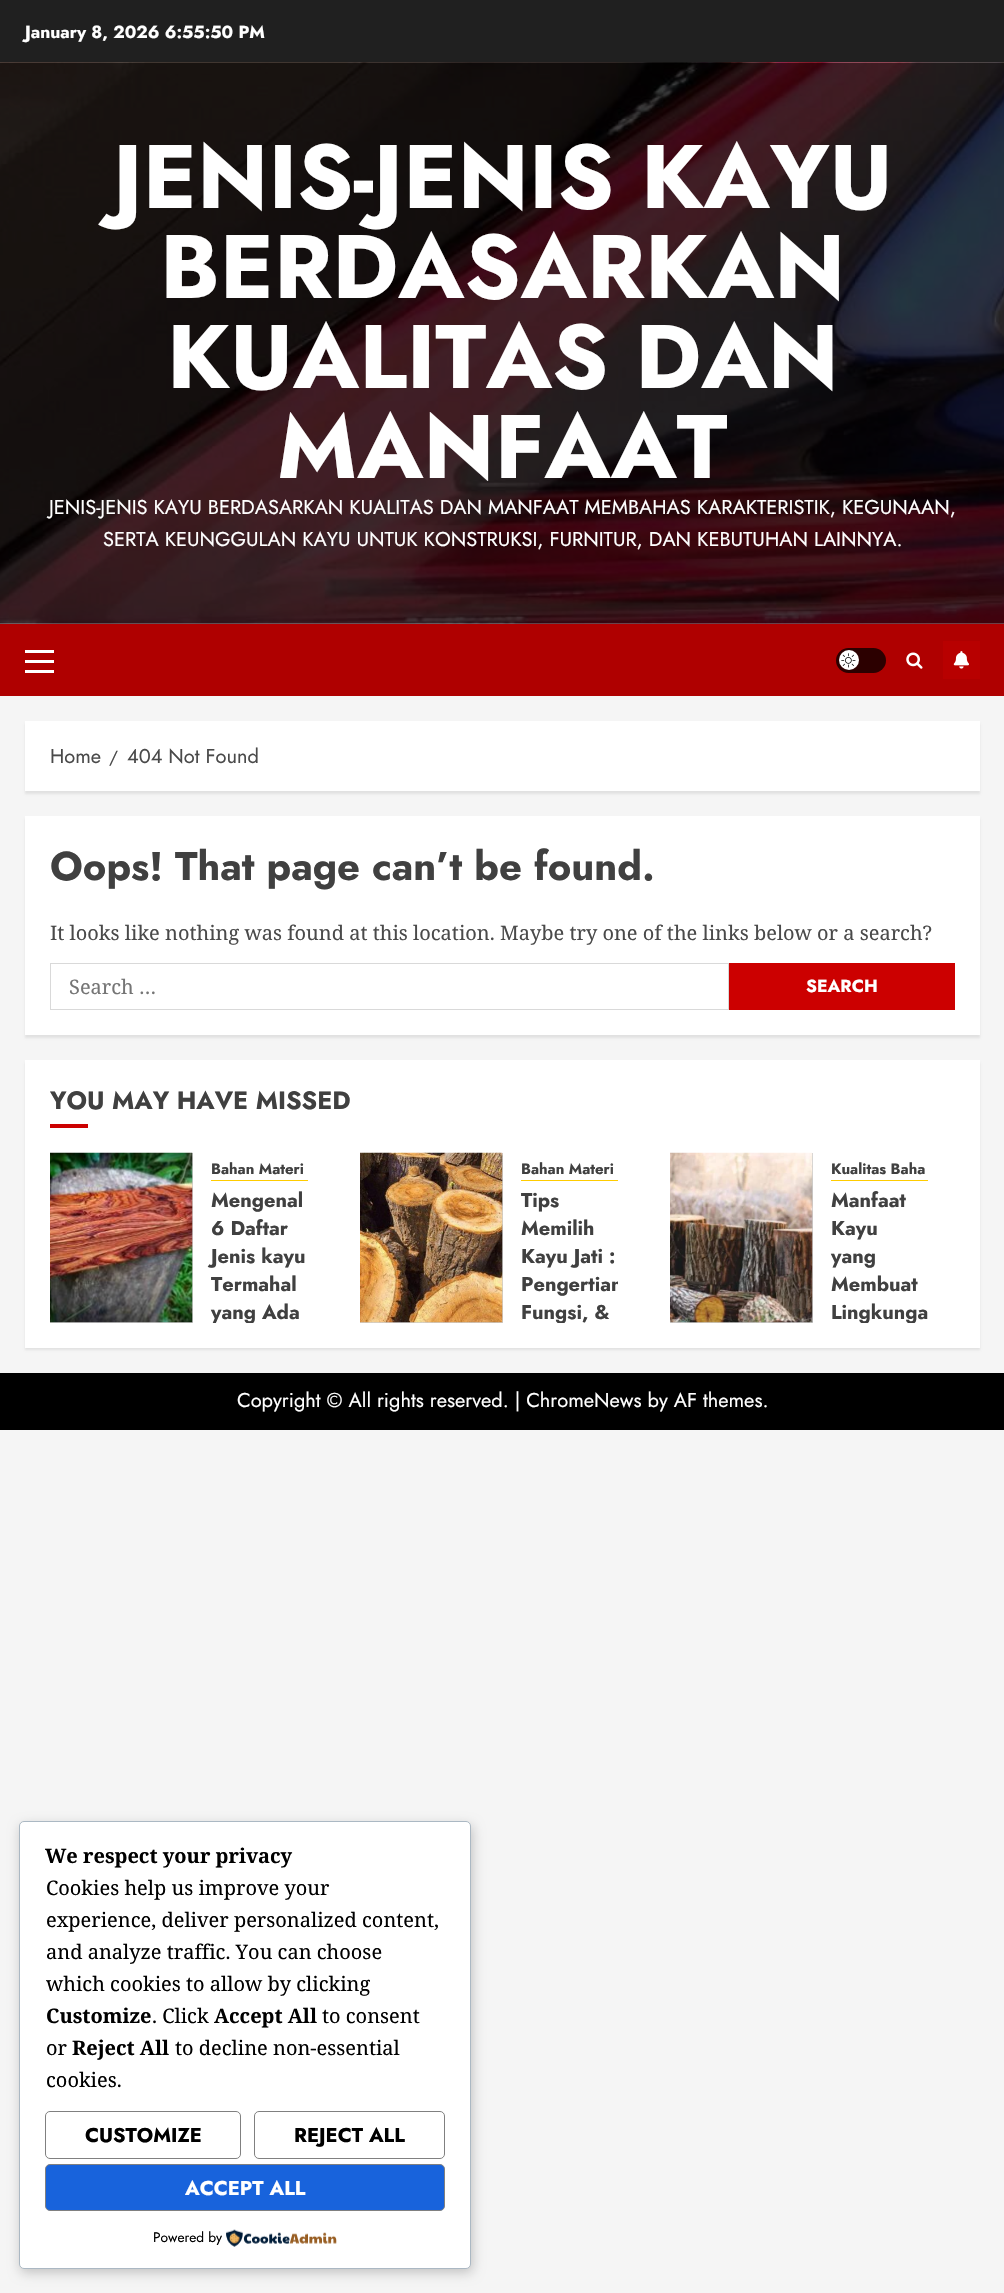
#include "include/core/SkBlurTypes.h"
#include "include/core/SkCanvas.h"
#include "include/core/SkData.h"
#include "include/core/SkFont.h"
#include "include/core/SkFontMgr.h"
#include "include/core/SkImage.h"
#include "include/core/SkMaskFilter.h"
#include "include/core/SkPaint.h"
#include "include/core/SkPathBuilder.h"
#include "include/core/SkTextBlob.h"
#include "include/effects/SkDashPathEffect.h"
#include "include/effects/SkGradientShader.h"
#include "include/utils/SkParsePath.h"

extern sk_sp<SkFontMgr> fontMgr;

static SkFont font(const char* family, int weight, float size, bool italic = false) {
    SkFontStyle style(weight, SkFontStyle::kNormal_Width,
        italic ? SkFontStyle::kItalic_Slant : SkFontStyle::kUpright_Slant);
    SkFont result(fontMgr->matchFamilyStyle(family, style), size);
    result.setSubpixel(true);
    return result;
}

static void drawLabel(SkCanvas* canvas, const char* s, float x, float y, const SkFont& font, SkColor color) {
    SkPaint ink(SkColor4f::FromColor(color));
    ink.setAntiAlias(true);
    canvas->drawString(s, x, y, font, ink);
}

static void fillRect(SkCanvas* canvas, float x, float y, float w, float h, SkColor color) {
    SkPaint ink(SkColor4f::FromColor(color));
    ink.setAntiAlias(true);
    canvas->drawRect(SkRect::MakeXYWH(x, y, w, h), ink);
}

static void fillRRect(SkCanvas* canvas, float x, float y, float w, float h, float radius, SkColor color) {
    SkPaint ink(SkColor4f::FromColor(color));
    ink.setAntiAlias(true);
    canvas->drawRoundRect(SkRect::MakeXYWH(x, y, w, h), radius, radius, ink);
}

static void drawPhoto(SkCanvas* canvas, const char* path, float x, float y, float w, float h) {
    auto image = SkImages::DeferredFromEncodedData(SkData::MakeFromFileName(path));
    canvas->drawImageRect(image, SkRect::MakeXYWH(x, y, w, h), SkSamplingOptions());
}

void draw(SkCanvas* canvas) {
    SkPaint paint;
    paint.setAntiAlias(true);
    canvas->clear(0xFFF5F5F5);
    fillRect(canvas, 0, 0, 1004, 63, 0xFF202020);
    SkFont font1 = font("Jost", 700, 17.5f);
    drawLabel(canvas, "January 8, 2026 6:55:50 PM", 25, 38, font1, 0xFFFFFFFF);
    drawPhoto(canvas, "assets/img1.png", 0, 62, 1004, 562);
    SkFont font2 = font("Jost", 700, 90);
    drawLabel(canvas, "JENIS-JENIS KAYU", 113, 208, font2, 0xFFFFFFFF);
    drawLabel(canvas, "BERDASARKAN", 160, 298, font2, 0xFFFFFFFF);
    drawLabel(canvas, "KUALITAS DAN", 167, 388, font2, 0xFFFFFFFF);
    drawLabel(canvas, "MANFAAT", 277, 478, font2, 0xFFFFFFFF);
    SkFont font3 = font("Jost", 400, 20);
    drawLabel(canvas, "JENIS-JENIS KAYU BERDASARKAN KUALITAS DAN MANFAAT MEMBAHAS KARAKTERISTIK, KEGUNAAN,", 49, 514, font3, 0xFFFFFFFF);
    drawLabel(canvas, "SERTA KEUNGGULAN KAYU UNTUK KONSTRUKSI, FURNITUR, DAN KEBUTUHAN LAINNYA.", 103, 546, font3, 0xFFFFFFFF);
    fillRect(canvas, 0, 624, 1004, 72, 0xFFAF0000);
    fillRect(canvas, 25, 660, 29, 3, 0xFFFFFFFF);
    fillRect(canvas, 25, 650, 29, 3, 0xFFFFFFFF);
    fillRect(canvas, 25, 670, 29, 3, 0xFFFFFFFF);
    fillRRect(canvas, 836, 648, 50, 25, 12.5f, 0xFF2C0000);
    paint.setColor(0xFFFFFFFF);
    canvas->drawCircle(849, 660, 10, paint);
    drawPhoto(canvas, "assets/img2.png", 841, 653, 15, 15);
    drawPhoto(canvas, "assets/img3.png", 906, 652, 17, 17);
    fillRect(canvas, 943, 641, 37, 38, 0xFFB80000);
    drawPhoto(canvas, "assets/img4.png", 953, 651, 16, 18);
    paint.setColor(0x14000000);
    paint.setMaskFilter(SkMaskFilter::MakeBlur(kNormal_SkBlurStyle, 1));
    canvas->drawRect(SkRect::MakeXYWH(25, 724, 955, 70), paint);
    paint.setMaskFilter(nullptr);
    fillRect(canvas, 25, 721, 955, 70, 0xFFFFFFFF);
    drawLabel(canvas, "Home", 50, 763, font3, 0xFF4A4A4A);
    SkFont font4 = font("Jost", 400, 17.5f);
    drawLabel(canvas, "/", 109, 763, font4, 0xFF4A4A4A);
    drawLabel(canvas, "404 Not Found", 127, 763, font3, 0xFF4A4A4A);
    paint.setMaskFilter(SkMaskFilter::MakeBlur(kNormal_SkBlurStyle, 1));
    canvas->drawRect(SkRect::MakeXYWH(25, 819, 955, 219), paint);
    paint.setMaskFilter(nullptr);
    fillRect(canvas, 25, 816, 955, 219, 0xFFFFFFFF);
    SkFont font5 = font("Jost", 700, 40);
    drawLabel(canvas, "Oops! That page can’t be found.", 50, 880, font5, 0xFF404040);
    SkFont font6 = font("Noto Serif", 400, 20);
    drawLabel(canvas, "It looks like nothing was found at this location. Maybe try one of the links below or a search?", 50, 940, font6, 0xFF4A4A4A);
    paint.setStroke(true);
    paint.setStrokeWidth(1);
    paint.setColor(0xFFD9D9D9);
    canvas->drawRect(SkRect::MakeXYWH(50.5f, 963.5f, 678, 46), paint);
    drawLabel(canvas, "Search …", 69, 994, font6, 0xFF757575);
    fillRect(canvas, 729, 963, 226, 47, 0xFFCC0000);
    drawLabel(canvas, "SEARCH", 806, 992, font1, 0xFFFFFFFF);
    paint.setStroke(false);
    paint.setColor(0x14000000);
    paint.setMaskFilter(SkMaskFilter::MakeBlur(kNormal_SkBlurStyle, 1));
    canvas->drawRect(SkRect::MakeXYWH(25, 1063, 955, 287), paint);
    paint.setMaskFilter(nullptr);
    fillRect(canvas, 25, 1060, 955, 288, 0xFFFFFFFF);
    SkFont font7 = font("Jost", 700, 25);
    drawLabel(canvas, "YOU MAY HAVE MISSED", 50, 1109, font7, 0xFF404040);
    fillRect(canvas, 50, 1124, 38, 4, 0xFFCC0000);
    fillRect(canvas, 50, 1153, 143, 170, 0xFFCCCCCC);
    drawPhoto(canvas, "assets/img5.png", 50, 1152, 143, 171);
    fillRect(canvas, 211, 1180, 97, 1, 0xFFFFCC00);
    SkFont font8 = font("Jost", 700, 15);
    drawLabel(canvas, "Bahan Materi", 211, 1174, font8, 0xFF404040);
    SkFont font9 = font("Jost", 700, 20);
    drawLabel(canvas, "Mengenal", 211, 1207, font9, 0xFF404040);
    drawLabel(canvas, "6 Daftar", 211, 1235, font9, 0xFF404040);
    drawLabel(canvas, "Jenis kayu", 211, 1263, font9, 0xFF404040);
    drawLabel(canvas, "Termahal", 211, 1291, font9, 0xFF404040);
    canvas->save();
    canvas->clipRect(SkRect::MakeXYWH(193, 1153, 115, 170));
    drawLabel(canvas, "yang Ada", 211, 1319, font9, 0xFF404040);
    canvas->restore();
    fillRect(canvas, 360, 1153, 143, 170, 0xFFCCCCCC);
    drawPhoto(canvas, "assets/img6.png", 360, 1152, 143, 171);
    fillRect(canvas, 521, 1180, 97, 1, 0xFFFFCC00);
    drawLabel(canvas, "Bahan Materi", 521, 1174, font8, 0xFF404040);
    drawLabel(canvas, "Tips", 521, 1207, font9, 0xFF404040);
    drawLabel(canvas, "Memilih", 521, 1235, font9, 0xFF404040);
    drawLabel(canvas, "Kayu Jati :", 521, 1263, font9, 0xFF404040);
    canvas->save();
    canvas->clipRect(SkRect::MakeXYWH(503, 1153, 115, 170));
    drawLabel(canvas, "Pengertian", 521, 1291, font9, 0xFF404040);
    drawLabel(canvas, "Fungsi, &", 521, 1319, font9, 0xFF404040);
    canvas->restore();
    fillRect(canvas, 670, 1153, 143, 170, 0xFFCCCCCC);
    drawPhoto(canvas, "assets/img7.png", 670, 1152, 143, 171);
    fillRect(canvas, 831, 1180, 97, 1, 0xFFFFCC00);
    drawLabel(canvas, "Kualitas Baha", 831, 1174, font8, 0xFF404040);
    drawLabel(canvas, "Manfaat", 831, 1207, font9, 0xFF404040);
    drawLabel(canvas, "Kayu", 831, 1235, font9, 0xFF404040);
    drawLabel(canvas, "yang", 831, 1263, font9, 0xFF404040);
    drawLabel(canvas, "Membuat", 831, 1291, font9, 0xFF404040);
    canvas->save();
    canvas->clipRect(SkRect::MakeXYWH(813, 1153, 115, 170));
    drawLabel(canvas, "Lingkunga", 831, 1319, font9, 0xFF404040);
    canvas->restore();
    fillRect(canvas, 0, 1373, 1004, 57, 0xFF000000);
    drawLabel(canvas, "Copyright © All rights reserved. | ChromeNews by AF themes.", 237, 1407, font3, 0xFFFFFFFF);
    paint.setColor(0x33000000);
    paint.setMaskFilter(SkMaskFilter::MakeBlur(kNormal_SkBlurStyle, 6));
    canvas->drawRoundRect(SkRect::MakeXYWH(20, 1825, 453, 448), 5, 5, paint);
    paint.setMaskFilter(nullptr);
    paint.setColor(0xFFFFFFFF);
    canvas->drawRoundRect(SkRect::MakeXYWH(19.5f, 1821.5f, 451, 447), 4.5f, 4.5f, paint);
    paint.setStroke(true);
    paint.setColor(0xFFABB8C3);
    canvas->drawRoundRect(SkRect::MakeXYWH(19.5f, 1821.5f, 451, 447), 4.5f, 4.5f, paint);
    SkFont font10 = font("Noto Serif", 700, 20);
    drawLabel(canvas, "We respect your privacy", 45, 1863, font10, 0xFF000000);
    drawLabel(canvas, "Cookies help us improve your", 46, 1895, font6, 0xFF000000);
    drawLabel(canvas, "experience, deliver personalized content,", 46, 1927, font6, 0xFF000000);
    drawLabel(canvas, "and analyze traffic. You can choose", 46, 1959, font6, 0xFF000000);
    drawLabel(canvas, "which cookies to allow by clicking", 46, 1991, font6, 0xFF000000);
    drawLabel(canvas, "Customize", 46, 2023, font10, 0xFF000000);
    drawLabel(canvas, ". Click", 152, 2023, font6, 0xFF000000);
    drawLabel(canvas, "Accept All", 214, 2023, font10, 0xFF000000);
    drawLabel(canvas, "to consent", 322, 2023, font6, 0xFF000000);
    drawLabel(canvas, "or", 46, 2055, font6, 0xFF000000);
    drawLabel(canvas, "Reject All", 72, 2055, font10, 0xFF000000);
    drawLabel(canvas, "to decline non-essential", 175, 2055, font6, 0xFF000000);
    drawLabel(canvas, "cookies.", 46, 2087, font6, 0xFF000000);
    paint.setColor(0xFF808080);
    canvas->drawRoundRect(SkRect::MakeXYWH(45.5f, 2111.5f, 195, 47), 4.5f, 4.5f, paint);
    drawLabel(canvas, "CUSTOMIZE", 85, 2142, font9, 0xFF000000);
    canvas->drawRoundRect(SkRect::MakeXYWH(254.5f, 2111.5f, 190, 47), 4.5f, 4.5f, paint);
    drawLabel(canvas, "REJECT ALL", 294, 2142, font9, 0xFF000000);
    paint.setStroke(false);
    paint.setColor(0xFF1863DC);
    canvas->drawRoundRect(SkRect::MakeXYWH(45.5f, 2164.5f, 399, 46), 4.5f, 4.5f, paint);
    paint.setStroke(true);
    paint.setColor(0xFF808080);
    canvas->drawRoundRect(SkRect::MakeXYWH(45.5f, 2164.5f, 399, 46), 4.5f, 4.5f, paint);
    drawLabel(canvas, "ACCEPT ALL", 185, 2195, font9, 0xFFFFFFFF);
    SkFont font11 = font("Jost", 400, 13.75f);
    drawLabel(canvas, "Powered by", 153, 2242, font11, 0xFF000000);
    drawPhoto(canvas, "assets/img8.png", 226, 2229, 111, 18);
}
